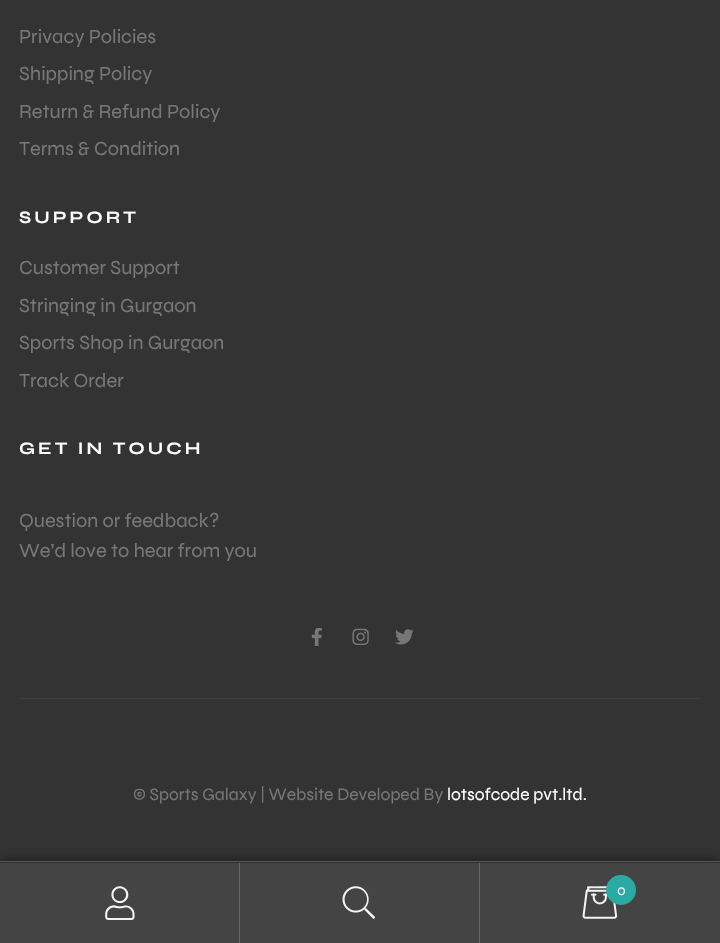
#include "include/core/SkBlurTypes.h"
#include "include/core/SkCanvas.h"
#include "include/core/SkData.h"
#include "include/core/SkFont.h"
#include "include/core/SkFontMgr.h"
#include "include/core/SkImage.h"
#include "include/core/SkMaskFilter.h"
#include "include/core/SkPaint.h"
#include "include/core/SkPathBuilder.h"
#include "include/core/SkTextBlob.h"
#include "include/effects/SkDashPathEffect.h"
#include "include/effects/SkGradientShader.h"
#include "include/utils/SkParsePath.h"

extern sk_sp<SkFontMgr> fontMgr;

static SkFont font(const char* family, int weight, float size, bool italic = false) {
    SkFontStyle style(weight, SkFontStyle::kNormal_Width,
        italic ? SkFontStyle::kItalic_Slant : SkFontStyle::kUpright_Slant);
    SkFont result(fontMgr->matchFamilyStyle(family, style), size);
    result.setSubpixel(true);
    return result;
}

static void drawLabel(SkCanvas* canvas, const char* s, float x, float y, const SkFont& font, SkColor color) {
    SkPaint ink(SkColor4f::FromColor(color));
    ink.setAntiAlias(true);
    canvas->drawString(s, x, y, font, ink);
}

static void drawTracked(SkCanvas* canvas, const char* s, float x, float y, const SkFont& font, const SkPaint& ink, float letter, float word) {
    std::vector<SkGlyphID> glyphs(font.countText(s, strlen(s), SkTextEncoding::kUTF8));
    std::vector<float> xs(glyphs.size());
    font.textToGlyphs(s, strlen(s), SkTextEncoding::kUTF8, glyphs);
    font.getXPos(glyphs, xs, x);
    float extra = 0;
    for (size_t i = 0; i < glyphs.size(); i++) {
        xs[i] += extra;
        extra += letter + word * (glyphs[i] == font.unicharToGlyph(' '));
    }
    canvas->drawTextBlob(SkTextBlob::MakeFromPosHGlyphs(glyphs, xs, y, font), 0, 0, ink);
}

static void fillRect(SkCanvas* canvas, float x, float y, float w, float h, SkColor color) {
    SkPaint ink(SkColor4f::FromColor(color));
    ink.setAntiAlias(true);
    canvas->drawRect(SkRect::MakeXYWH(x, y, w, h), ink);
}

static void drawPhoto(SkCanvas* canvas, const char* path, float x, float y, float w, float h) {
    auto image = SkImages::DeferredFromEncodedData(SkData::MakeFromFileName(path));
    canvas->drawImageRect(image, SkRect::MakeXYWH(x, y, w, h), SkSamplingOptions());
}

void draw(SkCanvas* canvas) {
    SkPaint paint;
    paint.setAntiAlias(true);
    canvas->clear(0xFF333333);
    SkFont font1 = font("Syne", 400, 20);
    drawLabel(canvas, "Privacy Policies", 19, 43, font1, 0xFF777777);
    drawLabel(canvas, "Shipping Policy", 19, 80, font1, 0xFF777777);
    drawLabel(canvas, "Return & Refund Policy", 19, 118, font1, 0xFF777777);
    drawLabel(canvas, "Terms & Condition", 19, 155, font1, 0xFF777777);
    SkFont font2 = font("Syne", 700, 17.5f);
    paint.setColor(0xFFFFFFFF);
    drawTracked(canvas, "SUPPORT", 19, 223, font2, paint, 3.1f, 0);
    drawLabel(canvas, "Customer Support", 19, 274, font1, 0xFF777777);
    drawLabel(canvas, "Stringing in Gurgaon", 19, 312, font1, 0xFF777777);
    drawLabel(canvas, "Sports Shop in Gurgaon", 19, 349, font1, 0xFF777777);
    drawLabel(canvas, "Track Order", 19, 387, font1, 0xFF777777);
    drawTracked(canvas, "GET IN TOUCH", 19, 454, font2, paint, 3.1f, 0);
    drawLabel(canvas, "Question or feedback?", 19, 527, font1, 0xFF777777);
    drawLabel(canvas, "We’d love to hear from you", 19, 557, font1, 0xFF777777);
    drawPhoto(canvas, "assets/img1.png", 311, 628, 11, 18);
    drawPhoto(canvas, "assets/img2.png", 352, 628, 17, 17);
    drawPhoto(canvas, "assets/img3.png", 395, 629, 19, 16);
    fillRect(canvas, 19, 698, 682, 1, 0xFF3E3E3E);
    SkFont font3 = font("Syne", 400, 17.5f);
    drawLabel(canvas, "© Sports Galaxy | Website Developed By", 133, 800, font3, 0xFF777777);
    drawLabel(canvas, "lotsofcode pvt.ltd.", 447, 800, font3, 0xFFFFFFFF);
    paint.setColor(0x80000000);
    paint.setMaskFilter(SkMaskFilter::MakeBlur(kNormal_SkBlurStyle, 6));
    canvas->drawRect(SkRect::MakeXYWH(0, 861, 720, 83), paint);
    paint.setMaskFilter(nullptr);
    fillRect(canvas, 0, 862, 720, 1, 0xFF2D2D2D);
    fillRect(canvas, 0, 861, 720, 1, 0xFF575757);
    fillRect(canvas, 0, 863, 239, 80, 0xFF444444);
    fillRect(canvas, 239, 863, 1, 80, 0xFF696969);
    drawPhoto(canvas, "assets/img4.png", 105, 886, 30, 34);
    fillRect(canvas, 240, 863, 239, 80, 0xFF444444);
    fillRect(canvas, 479, 863, 1, 80, 0xFF696969);
    drawPhoto(canvas, "assets/img5.png", 342, 886, 33, 33);
    fillRect(canvas, 480, 863, 240, 80, 0xFF444444);
    drawPhoto(canvas, "assets/img6.png", 582, 886, 36, 33);
    paint.setColor(0xFF29ABA4);
    canvas->drawCircle(621, 890, 15, paint);
    SkFont font4 = font("Syne", 400, 15);
    drawLabel(canvas, "0", 617, 895, font4, 0xFFF3F3F3);
}
